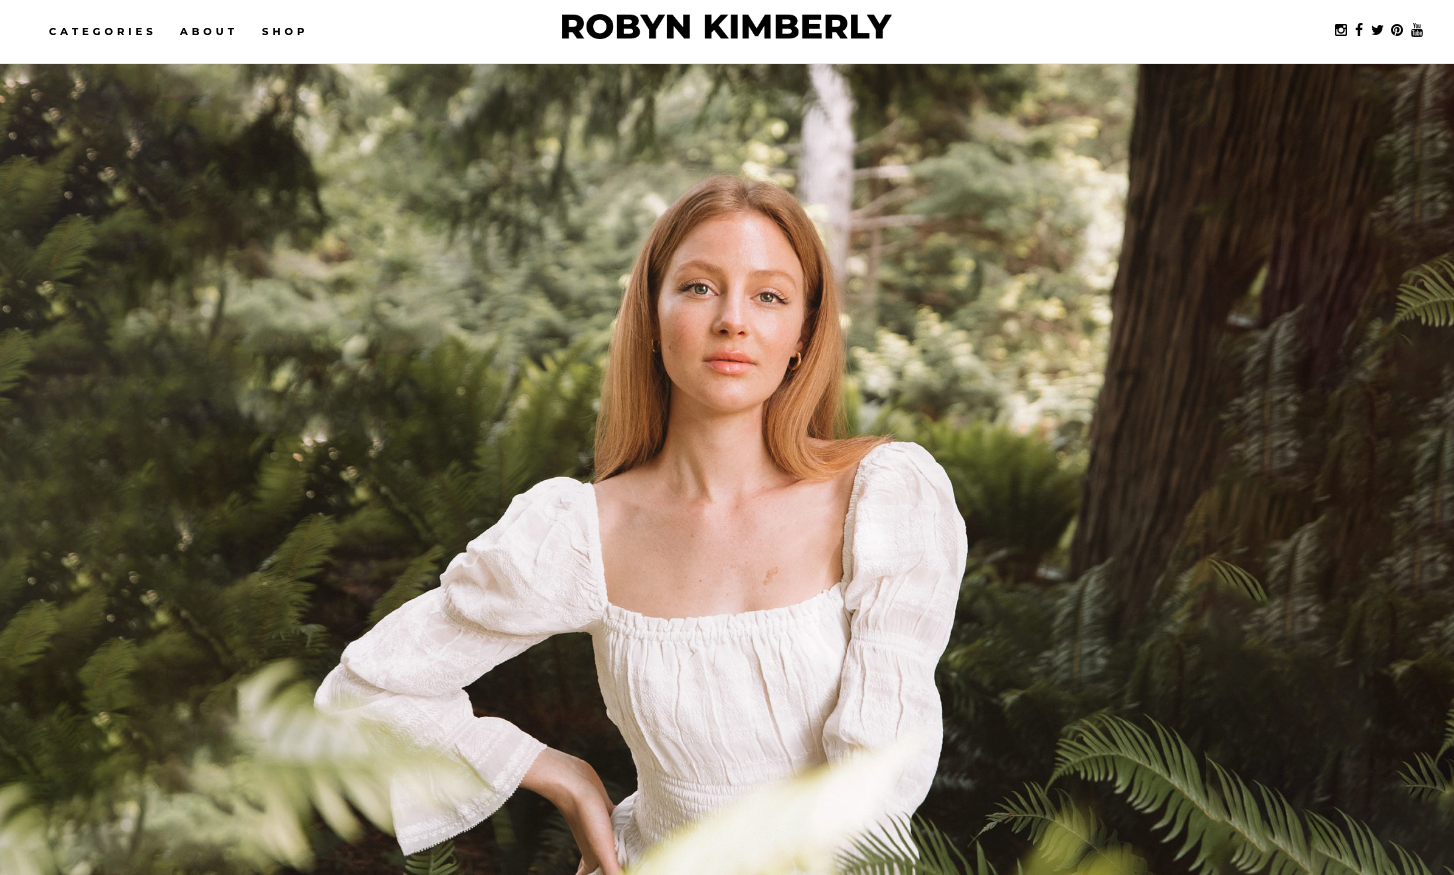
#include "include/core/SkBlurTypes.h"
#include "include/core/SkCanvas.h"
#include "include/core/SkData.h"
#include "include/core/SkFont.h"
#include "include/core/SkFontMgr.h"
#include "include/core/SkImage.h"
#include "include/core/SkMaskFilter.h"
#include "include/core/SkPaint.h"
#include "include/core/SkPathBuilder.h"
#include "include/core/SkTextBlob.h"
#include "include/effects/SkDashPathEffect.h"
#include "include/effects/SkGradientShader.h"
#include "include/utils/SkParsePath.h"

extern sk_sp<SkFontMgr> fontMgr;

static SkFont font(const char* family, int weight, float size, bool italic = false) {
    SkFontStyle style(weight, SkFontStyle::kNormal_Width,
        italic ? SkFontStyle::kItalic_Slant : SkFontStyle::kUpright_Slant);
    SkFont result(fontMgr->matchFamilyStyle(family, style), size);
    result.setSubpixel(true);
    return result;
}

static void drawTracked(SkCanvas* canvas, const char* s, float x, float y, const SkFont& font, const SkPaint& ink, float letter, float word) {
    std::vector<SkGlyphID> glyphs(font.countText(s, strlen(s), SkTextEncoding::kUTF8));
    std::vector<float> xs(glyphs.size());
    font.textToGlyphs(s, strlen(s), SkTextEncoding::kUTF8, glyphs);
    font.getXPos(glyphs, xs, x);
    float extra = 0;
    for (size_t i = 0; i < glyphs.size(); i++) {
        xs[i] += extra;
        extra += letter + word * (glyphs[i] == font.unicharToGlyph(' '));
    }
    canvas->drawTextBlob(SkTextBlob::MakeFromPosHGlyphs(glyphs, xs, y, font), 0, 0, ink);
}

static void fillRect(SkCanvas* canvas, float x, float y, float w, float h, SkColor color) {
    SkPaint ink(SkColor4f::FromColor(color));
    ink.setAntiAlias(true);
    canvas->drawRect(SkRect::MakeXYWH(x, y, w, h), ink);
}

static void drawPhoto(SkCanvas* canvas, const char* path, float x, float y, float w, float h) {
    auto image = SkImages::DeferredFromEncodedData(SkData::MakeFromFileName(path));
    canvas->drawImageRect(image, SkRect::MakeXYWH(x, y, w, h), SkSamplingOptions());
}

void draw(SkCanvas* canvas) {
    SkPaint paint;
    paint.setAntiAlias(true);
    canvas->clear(0xFFFFFFFF);
    fillRect(canvas, 0, 63, 1454, 1, 0xFFEDEDED);
    SkFont font1 = font("Montserrat", 700, 10);
    paint.setColor(0xFF000000);
    drawTracked(canvas, "CATEGORIES", 49, 35, font1, paint, 4, 0);
    drawTracked(canvas, "ABOUT", 180, 35, font1, paint, 4, 0);
    drawTracked(canvas, "SHOP", 262, 35, font1, paint, 4, 0);
    drawPhoto(canvas, "assets/img1.png", 562, 14, 330, 25);
    drawPhoto(canvas, "assets/img2.png", 1335, 24, 12, 12);
    drawPhoto(canvas, "assets/img3.png", 1355, 23, 8, 13);
    drawPhoto(canvas, "assets/img4.png", 1371, 25, 13, 10);
    drawPhoto(canvas, "assets/img5.png", 1391, 24, 12, 12);
    drawPhoto(canvas, "assets/img6.png", 1411, 23, 12, 14);
    drawPhoto(canvas, "assets/img7.png", 0, 64, 1454, 811);
}
